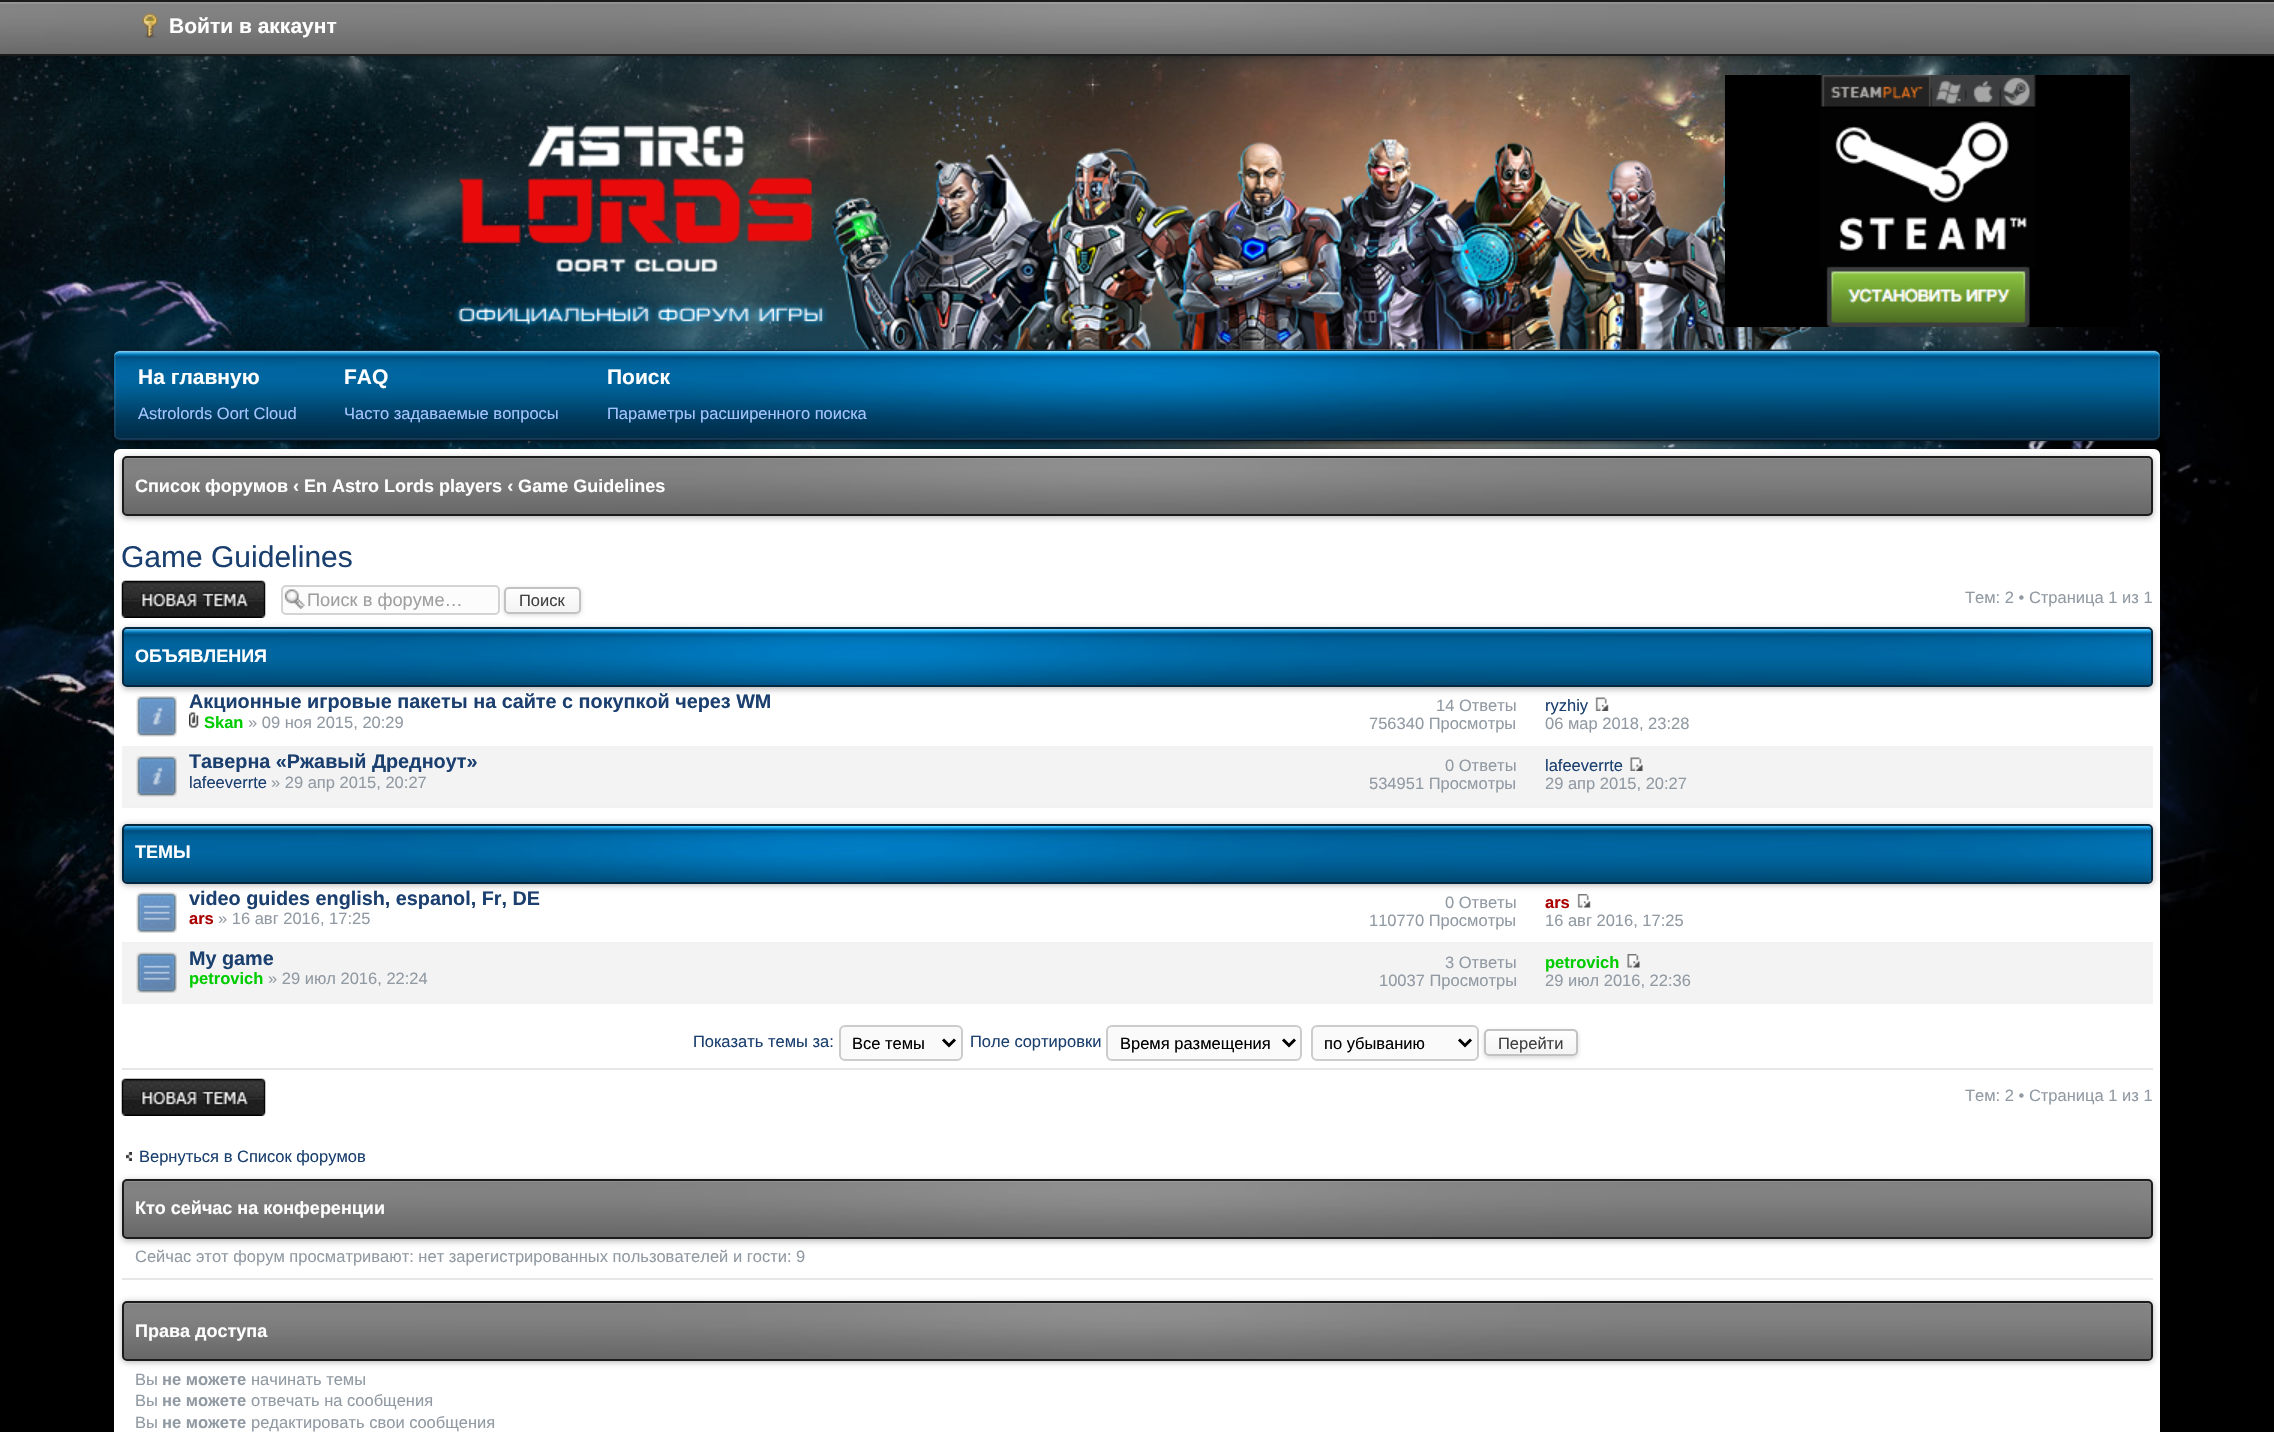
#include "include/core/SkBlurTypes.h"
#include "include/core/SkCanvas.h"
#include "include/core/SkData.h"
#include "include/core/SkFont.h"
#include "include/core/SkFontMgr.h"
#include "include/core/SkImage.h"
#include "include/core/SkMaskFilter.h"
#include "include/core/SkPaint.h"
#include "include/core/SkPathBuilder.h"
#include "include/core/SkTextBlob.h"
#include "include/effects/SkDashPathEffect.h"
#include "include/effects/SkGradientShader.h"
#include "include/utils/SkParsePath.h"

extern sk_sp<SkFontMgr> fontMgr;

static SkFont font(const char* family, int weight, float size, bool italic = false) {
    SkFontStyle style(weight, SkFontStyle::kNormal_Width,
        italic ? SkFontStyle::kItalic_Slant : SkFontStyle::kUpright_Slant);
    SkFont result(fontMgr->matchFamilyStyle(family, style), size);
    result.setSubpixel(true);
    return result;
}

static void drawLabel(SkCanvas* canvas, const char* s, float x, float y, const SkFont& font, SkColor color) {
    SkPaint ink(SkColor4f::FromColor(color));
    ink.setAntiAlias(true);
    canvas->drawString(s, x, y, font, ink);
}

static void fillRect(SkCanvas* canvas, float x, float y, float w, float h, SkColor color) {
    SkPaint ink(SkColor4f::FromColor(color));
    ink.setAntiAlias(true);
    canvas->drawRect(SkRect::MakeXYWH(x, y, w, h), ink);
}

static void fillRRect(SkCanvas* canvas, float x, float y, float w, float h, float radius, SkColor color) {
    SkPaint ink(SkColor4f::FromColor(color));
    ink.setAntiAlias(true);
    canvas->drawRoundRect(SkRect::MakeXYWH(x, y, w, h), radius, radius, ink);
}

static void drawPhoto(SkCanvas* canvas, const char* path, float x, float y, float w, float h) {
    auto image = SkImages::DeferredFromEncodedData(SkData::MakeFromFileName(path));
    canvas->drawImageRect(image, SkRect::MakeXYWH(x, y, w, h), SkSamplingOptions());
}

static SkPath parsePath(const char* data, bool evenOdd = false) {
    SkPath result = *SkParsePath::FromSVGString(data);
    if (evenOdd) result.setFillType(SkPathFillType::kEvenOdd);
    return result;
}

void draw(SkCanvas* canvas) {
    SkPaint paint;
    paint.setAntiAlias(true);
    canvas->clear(0xFF000000);
    drawPhoto(canvas, "assets/img1.png", 0, 56, 2258, 1089);
    paint.setColor(0x4D000000);
    paint.setMaskFilter(SkMaskFilter::MakeBlur(kNormal_SkBlurStyle, 3));
    canvas->drawRect(SkRect::MakeXYWH(0, 2, 2274, 55), paint);
    paint.setMaskFilter(nullptr);
    drawPhoto(canvas, "assets/img2.png", 0, 2, 2274, 52);
    fillRect(canvas, 0, 2, 2274, 2, 0x21FFFFFF);
    fillRect(canvas, 0, 0, 2274, 2, 0xFF1B1B1B);
    fillRect(canvas, 0, 54, 2274, 2, 0xFF1B1B1B);
    drawPhoto(canvas, "assets/img3.png", 142, 13, 16, 25);
    SkFont font1 = font("Liberation Sans", 700, 21);
    drawLabel(canvas, "Войти в аккаунт", 169, 33, font1, 0xFFFFFFFF);
    drawPhoto(canvas, "assets/img5.png", 454, 125, 1358, 225);
    drawPhoto(canvas, "assets/img4.png", 1725, 75, 405, 252);
    paint.setMaskFilter(SkMaskFilter::MakeBlur(kNormal_SkBlurStyle, 3));
    canvas->drawRoundRect(SkRect::MakeXYWH(114, 450, 2046, 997), 6, 6, paint);
    paint.setMaskFilter(nullptr);
    fillRRect(canvas, 114, 449, 2046, 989, 6, 0xFFFFFFFF);
    paint.setColor(0x80000000);
    paint.setMaskFilter(SkMaskFilter::MakeBlur(kNormal_SkBlurStyle, 2));
    canvas->drawRoundRect(SkRect::MakeXYWH(114, 351, 2046, 92), 6, 6, paint);
    paint.setMaskFilter(nullptr);
    paint.setColor(0xFF022046);
    canvas->drawPath(parsePath("M120 351H2154C2157 351 2160 353 2160 356V435C2160 437 2157 440 2154 440H120C117 440 114 437 114 435V356C114 353 117 351 120 351Z"), paint);
    drawPhoto(canvas, "assets/img6.png", 114, 351, 2046, 89);
    paint.setStroke(true);
    paint.setStrokeWidth(1.5f);
    paint.setColor(0x1AFFFFFF);
    canvas->drawPath(parsePath("M120 352H2154C2157 352 2159 353.5 2159 355.5V435C2159 437 2157 439 2154 439H120C117 439 115 437 115 435V355.5C115 353.5 117 352 120 352Z"), paint);
    paint.setStroke(false);
    paint.setColor(0x33FFFFFF);
    canvas->drawPath(parsePath("M120 352H2154C2157 352 2160 355 2160 357C2160 353 2158 351 2154 351H120C118 351 115 352 114 355V357C114 355 117 352 120 352Z"), paint);
    paint.setColor(0xFF0D283C);
    canvas->drawPath(parsePath("M120 350C117 350 114 352 114 356C114 353 117 351 120 351H2154C2157 351 2160 353 2160 356C2160 352 2157 350 2154 350Z"), paint);
    paint.setColor(0xFF071827);
    canvas->drawPath(parsePath("M2154 441C2157 441 2160 438 2160 435C2160 437 2157 440 2154 440H120C117 440 114 437 114 435C114 438 117 441 120 441Z"), paint);
    drawLabel(canvas, "На главную", 138, 384, font1, 0xFFFFFFFF);
    SkFont font2 = font("Liberation Sans", 400, 16.5f);
    drawLabel(canvas, "Astrolords Oort Cloud", 138, 419, font2, 0xFFA4C4FF);
    drawLabel(canvas, "FAQ", 344, 384, font1, 0xFFFFFFFF);
    drawLabel(canvas, "Часто задаваемые вопросы", 344, 419, font2, 0xFFA4C4FF);
    drawLabel(canvas, "Поиск", 607, 384, font1, 0xFFFFFFFF);
    drawLabel(canvas, "Параметры расширенного поиска", 607, 419, font2, 0xFFA4C4FF);
    paint.setColor(0x4D000000);
    paint.setMaskFilter(SkMaskFilter::MakeBlur(kNormal_SkBlurStyle, 3));
    canvas->drawRoundRect(SkRect::MakeXYWH(122, 458, 2031, 60), 5, 5, paint);
    paint.setMaskFilter(nullptr);
    drawPhoto(canvas, "assets/img7.png", 124, 458, 2027, 56);
    paint.setColor(0x21FFFFFF);
    canvas->drawPath(parsePath("M126 459H2148C2150 459 2151 460 2151 462V461C2151 459 2150 458 2148 458H126C124 458 123 459 123 461V462C123 460 124 459 126 459Z"), paint);
    paint.setStroke(true);
    paint.setStrokeWidth(2);
    paint.setColor(0xFF1B1B1B);
    canvas->drawRoundRect(SkRect::MakeXYWH(123, 457, 2029, 58), 4, 4, paint);
    SkFont font3 = font("Liberation Sans", 700, 18);
    drawLabel(canvas, "Список форумов ‹ En Astro Lords players ‹ Game Guidelines", 135, 492, font3, 0xFFFFFFFF);
    SkFont font4 = font("Liberation Sans", 400, 30);
    drawLabel(canvas, "Game Guidelines", 121, 567, font4, 0xFF1B406F);
    drawPhoto(canvas, "assets/img8.png", 121, 580, 145, 38);
    fillRRect(canvas, 281, 585, 219, 30, 5, 0xFFFCFCFC);
    drawPhoto(canvas, "assets/img9.png", 284, 589, 21, 20);
    paint.setColor(0xFFD4D4D4);
    canvas->drawRoundRect(SkRect::MakeXYWH(282, 586, 217, 28), 4, 4, paint);
    SkFont font5 = font("Liberation Sans", 400, 18.25f);
    drawLabel(canvas, "Поиск в форуме…", 307, 606, font5, 0xFF9F9F9F);
    paint.setStroke(false);
    paint.setColor(0x26000000);
    paint.setMaskFilter(SkMaskFilter::MakeBlur(kNormal_SkBlurStyle, 2));
    canvas->drawRoundRect(SkRect::MakeXYWH(504, 588, 77, 27), 5, 5, paint);
    paint.setMaskFilter(nullptr);
    fillRRect(canvas, 504, 587, 77, 27, 5, 0xFFF4F4F4);
    canvas->save();
    canvas->clipPath(parsePath("M509 587H576C579 587 581 589 581 592V609C581 612 579 614 576 614H509C506 614 504 612 504 609V592C504 589 506 587 509 587Z"), true);
    {
        const SkColor colors[] = {0xFFFFFFFF, 0x00FFFFFF};
        const float stops[] = {0, 1};
        const SkPoint ends[] = {{542, 587}, {542, 611}};
        paint.setShader(SkGradientShader::MakeLinear(ends, colors, stops, 2, SkTileMode::kClamp));
        paint.setAlpha(255);
    }
    canvas->drawPath(parsePath("M509 587H576C579 587 581 589 581 592V611H504V592C504 589 506 587 509 587Z"), paint);
    canvas->restore();
    paint.setStroke(true);
    paint.setShader(nullptr);
    paint.setColor(0xFFC0C2C3);
    canvas->drawRoundRect(SkRect::MakeXYWH(505, 588, 75, 25), 4, 4, paint);
    drawLabel(canvas, "Поиск", 519, 606, font2, 0xFF414141);
    drawLabel(canvas, "Тем: 2 • Страница 1 из 1", 1965, 603, font2, 0xFF919AA3);
    paint.setStroke(false);
    paint.setColor(0x4D000000);
    paint.setMaskFilter(SkMaskFilter::MakeBlur(kNormal_SkBlurStyle, 3));
    canvas->drawRoundRect(SkRect::MakeXYWH(122, 629, 2031, 60), 5, 5, paint);
    paint.setMaskFilter(nullptr);
    drawPhoto(canvas, "assets/img10.png", 124, 629, 2027, 56);
    paint.setColor(0x21FFFFFF);
    canvas->drawPath(parsePath("M126 630H2148C2150 630 2151 631 2151 633V632C2151 630 2150 629 2148 629H126C124 629 123 630 123 632V633C123 631 124 630 126 630Z"), paint);
    paint.setStroke(true);
    paint.setColor(0xFF052841);
    canvas->drawRoundRect(SkRect::MakeXYWH(123, 628, 2029, 58), 4, 4, paint);
    drawLabel(canvas, "ОБЪЯВЛЕНИЯ", 135, 662, font3, 0xFFFFFFFF);
    fillRect(canvas, 122, 746, 2031, 1, 0xFFF2F2F2);
    drawPhoto(canvas, "assets/img11.png", 136, 696, 41, 41);
    SkFont font6 = font("Liberation Sans", 700, 19.8f);
    drawLabel(canvas, "Акционные игровые пакеты на сайте с покупкой через WM", 189, 708, font6, 0xFF1B406F);
    drawPhoto(canvas, "assets/img12.png", 189, 712, 10, 16);
    SkFont font7 = font("Liberation Sans", 700, 16.5f);
    drawLabel(canvas, "Skan", 204, 728, font7, 0xFF00CC00);
    drawLabel(canvas, "» 09 ноя 2015, 20:29", 248, 728, font2, 0xFF919AA3);
    drawLabel(canvas, "14 Ответы", 1436, 711, font2, 0xFF919AA3);
    drawLabel(canvas, "756340 Просмотры", 1369, 729, font2, 0xFF919AA3);
    drawLabel(canvas, "ryzhiy", 1545, 711, font2, 0xFF1B406F);
    drawPhoto(canvas, "assets/img13.png", 1595, 697, 14, 14);
    drawLabel(canvas, "06 мар 2018, 23:28", 1545, 729, font2, 0xFF919AA3);
    fillRect(canvas, 122, 747, 2031, 59, 0xFFF3F3F3);
    fillRect(canvas, 122, 806, 2031, 2, 0xFFF2F2F2);
    drawPhoto(canvas, "assets/img14.png", 136, 756, 41, 41);
    drawLabel(canvas, "Таверна «Ржавый Дредноут»", 189, 768, font6, 0xFF1B406F);
    drawLabel(canvas, "lafeeverrte", 189, 788, font2, 0xFF1B406F);
    drawLabel(canvas, "» 29 апр 2015, 20:27", 271, 788, font2, 0xFF919AA3);
    drawLabel(canvas, "0 Ответы", 1445, 771, font2, 0xFF919AA3);
    drawLabel(canvas, "534951 Просмотры", 1369, 789, font2, 0xFF919AA3);
    drawLabel(canvas, "lafeeverrte", 1545, 771, font2, 0xFF1B406F);
    drawPhoto(canvas, "assets/img15.png", 1630, 757, 13, 14);
    drawLabel(canvas, "29 апр 2015, 20:27", 1545, 789, font2, 0xFF919AA3);
    paint.setStroke(false);
    paint.setColor(0x4D000000);
    paint.setMaskFilter(SkMaskFilter::MakeBlur(kNormal_SkBlurStyle, 3));
    canvas->drawRoundRect(SkRect::MakeXYWH(122, 825, 2031, 60), 5, 5, paint);
    paint.setMaskFilter(nullptr);
    drawPhoto(canvas, "assets/img16.png", 123, 825, 2028, 57);
    paint.setColor(0x21FFFFFF);
    canvas->drawPath(parsePath("M126 826H2148C2150 826 2151 828 2151 830V828C2151 826 2150 825 2148 825H126C124 825 123 826 123 828V830C123 828 124 826 126 826Z"), paint);
    paint.setStroke(true);
    paint.setColor(0xFF052841);
    canvas->drawRoundRect(SkRect::MakeXYWH(123, 825, 2029, 58), 4, 4, paint);
    drawLabel(canvas, "ТЕМЫ", 135, 858, font3, 0xFFFFFFFF);
    fillRect(canvas, 122, 942, 2031, 2, 0xFFF2F2F2);
    drawPhoto(canvas, "assets/img17.png", 136, 892, 41, 41);
    drawLabel(canvas, "video guides english, espanol, Fr, DE", 189, 905, font6, 0xFF1B406F);
    drawLabel(canvas, "ars", 189, 924, font7, 0xFFAA0000);
    drawLabel(canvas, "» 16 авг 2016, 17:25", 218, 924, font2, 0xFF919AA3);
    drawLabel(canvas, "0 Ответы", 1445, 908, font2, 0xFF919AA3);
    drawLabel(canvas, "110770 Просмотры", 1369, 926, font2, 0xFF919AA3);
    drawLabel(canvas, "ars", 1545, 908, font7, 0xFFAA0000);
    drawPhoto(canvas, "assets/img18.png", 1577, 894, 14, 14);
    drawLabel(canvas, "16 авг 2016, 17:25", 1545, 926, font2, 0xFF919AA3);
    fillRect(canvas, 122, 944, 2031, 60, 0xFFF3F3F3);
    drawPhoto(canvas, "assets/img19.png", 136, 952, 41, 41);
    drawLabel(canvas, "My game", 189, 965, font6, 0xFF1B406F);
    drawLabel(canvas, "petrovich", 189, 984, font7, 0xFF00CC00);
    drawLabel(canvas, "» 29 июл 2016, 22:24", 268, 984, font2, 0xFF919AA3);
    drawLabel(canvas, "3 Ответы", 1445, 968, font2, 0xFF919AA3);
    drawLabel(canvas, "10037 Просмотры", 1379, 986, font2, 0xFF919AA3);
    drawLabel(canvas, "petrovich", 1545, 968, font7, 0xFF00CC00);
    drawPhoto(canvas, "assets/img20.png", 1627, 954, 13, 14);
    drawLabel(canvas, "29 июл 2016, 22:36", 1545, 986, font2, 0xFF919AA3);
    drawLabel(canvas, "Показать темы за:", 693, 1047, font2, 0xFF1B406F);
    paint.setStroke(false);
    paint.setColor(0xFFFAFAFA);
    canvas->drawRoundRect(SkRect::MakeXYWH(840, 1026, 122, 34), 5, 5, paint);
    paint.setStroke(true);
    paint.setColor(0xFFCCCCCC);
    canvas->drawRoundRect(SkRect::MakeXYWH(840, 1026, 122, 34), 5, 5, paint);
    paint.setStrokeWidth(3);
    paint.setColor(0xFF000000);
    canvas->drawPath(parsePath("M943 1039.5L949 1045.5L955 1039.5"), paint);
    drawLabel(canvas, "Все темы", 852, 1049, font2, 0xFF000000);
    drawLabel(canvas, "Поле сортировки", 970, 1047, font2, 0xFF1B406F);
    paint.setStroke(false);
    paint.setColor(0xFFFAFAFA);
    canvas->drawRoundRect(SkRect::MakeXYWH(1107, 1026, 194, 34), 5, 5, paint);
    paint.setStroke(true);
    paint.setStrokeWidth(2);
    paint.setColor(0xFFCCCCCC);
    canvas->drawRoundRect(SkRect::MakeXYWH(1107, 1026, 194, 34), 5, 5, paint);
    paint.setStrokeWidth(3);
    paint.setColor(0xFF000000);
    canvas->drawPath(parsePath("M1283 1039.5L1289 1045.5L1295 1039.5"), paint);
    drawLabel(canvas, "Время размещения", 1120, 1049, font2, 0xFF000000);
    paint.setStroke(false);
    paint.setColor(0xFFFAFAFA);
    canvas->drawRoundRect(SkRect::MakeXYWH(1312, 1026, 166, 34), 5, 5, paint);
    paint.setStroke(true);
    paint.setStrokeWidth(2);
    paint.setColor(0xFFCCCCCC);
    canvas->drawRoundRect(SkRect::MakeXYWH(1312, 1026, 166, 34), 5, 5, paint);
    paint.setStrokeWidth(3);
    paint.setColor(0xFF000000);
    canvas->drawPath(parsePath("M1459 1039.5L1465 1045.5L1471 1039.5"), paint);
    canvas->save();
    canvas->clipRect(SkRect::MakeXYWH(1325, 1032, 123, 21));
    drawLabel(canvas, "по убыванию", 1324, 1049, font2, 0xFF000000);
    canvas->restore();
    paint.setStroke(false);
    paint.setColor(0x26000000);
    paint.setMaskFilter(SkMaskFilter::MakeBlur(kNormal_SkBlurStyle, 2));
    canvas->drawRoundRect(SkRect::MakeXYWH(1484, 1031, 94, 27), 5, 5, paint);
    paint.setMaskFilter(nullptr);
    fillRRect(canvas, 1484, 1029, 94, 27, 5, 0xFFF4F4F4);
    canvas->save();
    canvas->clipPath(parsePath("M1489 1029H1573C1576 1029 1578 1031 1578 1034V1051C1578 1054 1576 1056 1573 1056H1489C1486 1056 1484 1054 1484 1051V1034C1484 1031 1486 1029 1489 1029Z"), true);
    {
        const SkColor colors[] = {0xFFFFFFFF, 0x00FFFFFF};
        const float stops[] = {0, 1};
        const SkPoint ends[] = {{1531, 1029}, {1531, 1053}};
        paint.setShader(SkGradientShader::MakeLinear(ends, colors, stops, 2, SkTileMode::kClamp));
        paint.setAlpha(255);
    }
    canvas->drawPath(parsePath("M1489 1029H1573C1576 1029 1578 1031 1578 1034V1053H1484V1034C1484 1031 1486 1029 1489 1029Z"), paint);
    canvas->restore();
    paint.setStroke(true);
    paint.setStrokeWidth(2);
    paint.setShader(nullptr);
    paint.setColor(0xFFC0C2C3);
    canvas->drawRoundRect(SkRect::MakeXYWH(1485, 1030, 92, 25), 4, 4, paint);
    drawLabel(canvas, "Перейти", 1498, 1049, font2, 0xFF414141);
    fillRect(canvas, 122, 1068, 2031, 2, 0xFFE7E7E7);
    drawPhoto(canvas, "assets/img8.png", 121, 1078, 145, 38);
    drawLabel(canvas, "Тем: 2 • Страница 1 из 1", 1965, 1101, font2, 0xFF919AA3);
    drawPhoto(canvas, "assets/img21.png", 126, 1152, 6, 9);
    drawLabel(canvas, "Вернуться в Список форумов", 139, 1162, font2, 0xFF1B406F);
    paint.setStroke(false);
    paint.setColor(0x4D000000);
    paint.setMaskFilter(SkMaskFilter::MakeBlur(kNormal_SkBlurStyle, 3));
    canvas->drawRoundRect(SkRect::MakeXYWH(122, 1181, 2031, 60), 5, 5, paint);
    paint.setMaskFilter(nullptr);
    drawPhoto(canvas, "assets/img7.png", 124, 1181, 2027, 56);
    paint.setColor(0x21FFFFFF);
    canvas->drawPath(parsePath("M126 1182H2148C2150 1182 2151 1183 2151 1185V1184C2151 1182 2150 1181 2148 1181H126C124 1181 123 1182 123 1184V1185C123 1183 124 1182 126 1182Z"), paint);
    paint.setStroke(true);
    paint.setColor(0xFF1B1B1B);
    canvas->drawRoundRect(SkRect::MakeXYWH(123, 1180, 2029, 58), 4, 4, paint);
    drawLabel(canvas, "Кто сейчас на конференции", 135, 1214, font3, 0xFFFFFFFF);
    drawLabel(canvas, "Сейчас этот форум просматривают: нет зарегистрированных пользователей и гости: 9", 135, 1262, font2, 0xFF919AA3);
    fillRect(canvas, 122, 1278, 2031, 2, 0xFFE7E7E7);
    paint.setStroke(false);
    paint.setColor(0x4D000000);
    paint.setMaskFilter(SkMaskFilter::MakeBlur(kNormal_SkBlurStyle, 3));
    canvas->drawRoundRect(SkRect::MakeXYWH(122, 1302, 2031, 60), 5, 5, paint);
    paint.setMaskFilter(nullptr);
    drawPhoto(canvas, "assets/img22.png", 123, 1302, 2028, 57);
    paint.setColor(0x21FFFFFF);
    canvas->drawPath(parsePath("M126 1304H2148C2150 1304 2151 1305 2151 1306V1305C2151 1303 2150 1302 2148 1302H126C124 1302 123 1303 123 1305V1306C123 1305 124 1304 126 1304Z"), paint);
    paint.setStroke(true);
    paint.setColor(0xFF1B1B1B);
    canvas->drawRoundRect(SkRect::MakeXYWH(123, 1302, 2029, 58), 4, 4, paint);
    drawLabel(canvas, "Права доступа", 135, 1337, font3, 0xFFFFFFFF);
    drawLabel(canvas, "Вы", 135, 1385, font2, 0xFF919AA3);
    drawLabel(canvas, "не можете", 162, 1385, font7, 0xFF919AA3);
    drawLabel(canvas, "начинать темы", 251, 1385, font2, 0xFF919AA3);
    drawLabel(canvas, "Вы", 135, 1406, font2, 0xFF919AA3);
    drawLabel(canvas, "не можете", 162, 1406, font7, 0xFF919AA3);
    drawLabel(canvas, "отвечать на сообщения", 251, 1406, font2, 0xFF919AA3);
    drawLabel(canvas, "Вы", 135, 1428, font2, 0xFF919AA3);
    drawLabel(canvas, "не можете", 162, 1428, font7, 0xFF919AA3);
    drawLabel(canvas, "редактировать свои сообщения", 251, 1428, font2, 0xFF919AA3);
}
